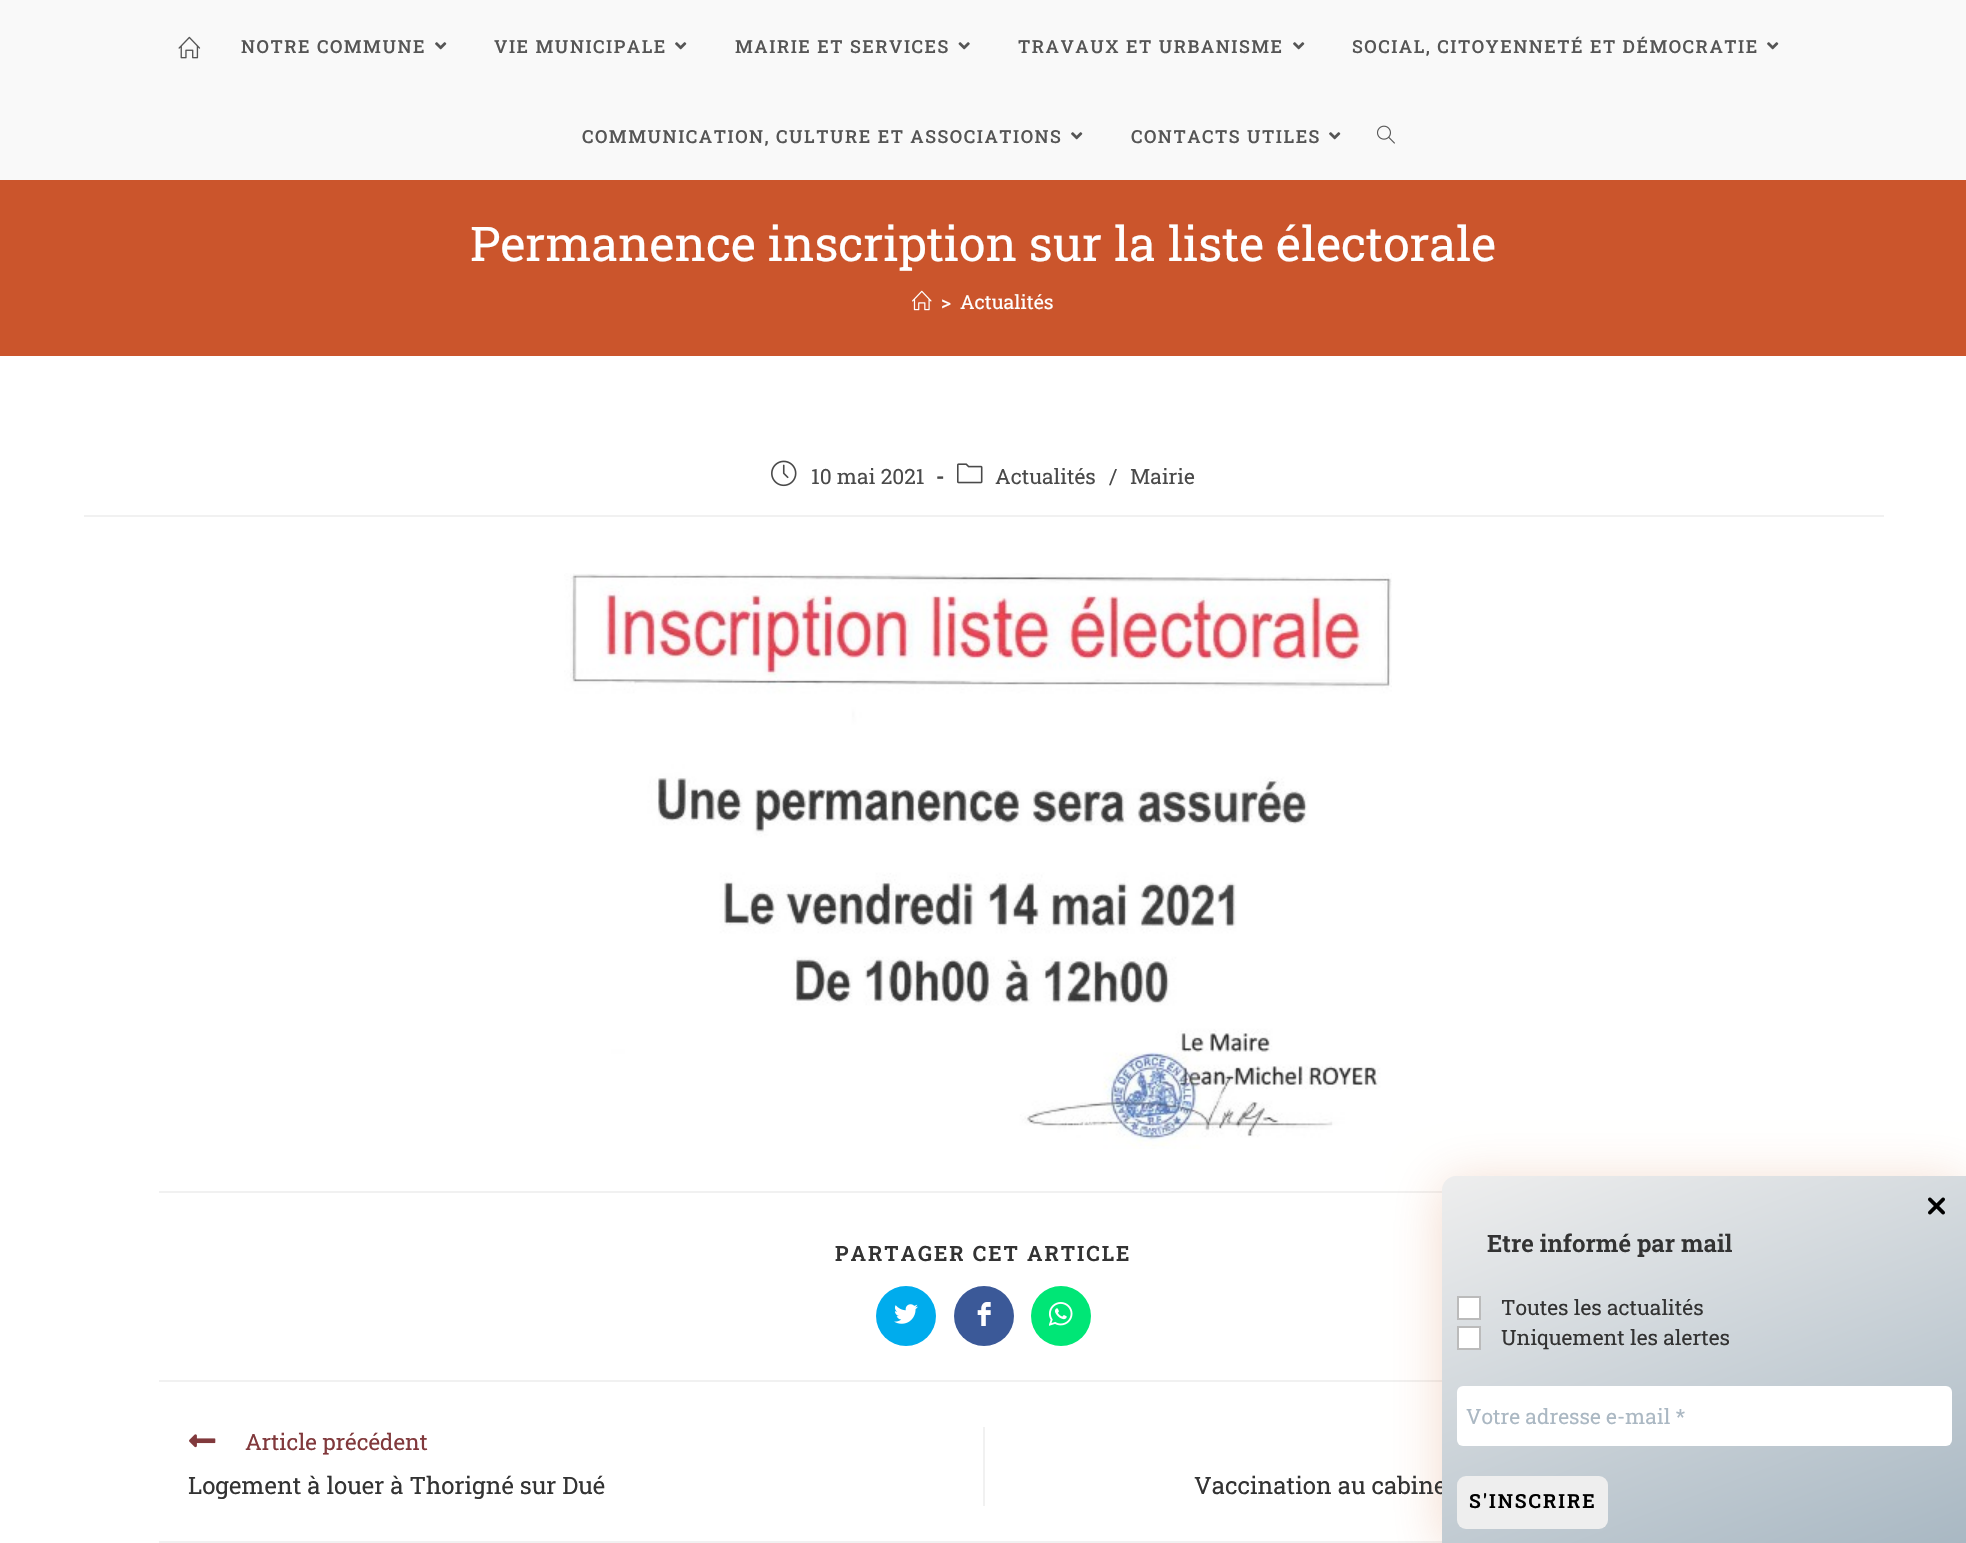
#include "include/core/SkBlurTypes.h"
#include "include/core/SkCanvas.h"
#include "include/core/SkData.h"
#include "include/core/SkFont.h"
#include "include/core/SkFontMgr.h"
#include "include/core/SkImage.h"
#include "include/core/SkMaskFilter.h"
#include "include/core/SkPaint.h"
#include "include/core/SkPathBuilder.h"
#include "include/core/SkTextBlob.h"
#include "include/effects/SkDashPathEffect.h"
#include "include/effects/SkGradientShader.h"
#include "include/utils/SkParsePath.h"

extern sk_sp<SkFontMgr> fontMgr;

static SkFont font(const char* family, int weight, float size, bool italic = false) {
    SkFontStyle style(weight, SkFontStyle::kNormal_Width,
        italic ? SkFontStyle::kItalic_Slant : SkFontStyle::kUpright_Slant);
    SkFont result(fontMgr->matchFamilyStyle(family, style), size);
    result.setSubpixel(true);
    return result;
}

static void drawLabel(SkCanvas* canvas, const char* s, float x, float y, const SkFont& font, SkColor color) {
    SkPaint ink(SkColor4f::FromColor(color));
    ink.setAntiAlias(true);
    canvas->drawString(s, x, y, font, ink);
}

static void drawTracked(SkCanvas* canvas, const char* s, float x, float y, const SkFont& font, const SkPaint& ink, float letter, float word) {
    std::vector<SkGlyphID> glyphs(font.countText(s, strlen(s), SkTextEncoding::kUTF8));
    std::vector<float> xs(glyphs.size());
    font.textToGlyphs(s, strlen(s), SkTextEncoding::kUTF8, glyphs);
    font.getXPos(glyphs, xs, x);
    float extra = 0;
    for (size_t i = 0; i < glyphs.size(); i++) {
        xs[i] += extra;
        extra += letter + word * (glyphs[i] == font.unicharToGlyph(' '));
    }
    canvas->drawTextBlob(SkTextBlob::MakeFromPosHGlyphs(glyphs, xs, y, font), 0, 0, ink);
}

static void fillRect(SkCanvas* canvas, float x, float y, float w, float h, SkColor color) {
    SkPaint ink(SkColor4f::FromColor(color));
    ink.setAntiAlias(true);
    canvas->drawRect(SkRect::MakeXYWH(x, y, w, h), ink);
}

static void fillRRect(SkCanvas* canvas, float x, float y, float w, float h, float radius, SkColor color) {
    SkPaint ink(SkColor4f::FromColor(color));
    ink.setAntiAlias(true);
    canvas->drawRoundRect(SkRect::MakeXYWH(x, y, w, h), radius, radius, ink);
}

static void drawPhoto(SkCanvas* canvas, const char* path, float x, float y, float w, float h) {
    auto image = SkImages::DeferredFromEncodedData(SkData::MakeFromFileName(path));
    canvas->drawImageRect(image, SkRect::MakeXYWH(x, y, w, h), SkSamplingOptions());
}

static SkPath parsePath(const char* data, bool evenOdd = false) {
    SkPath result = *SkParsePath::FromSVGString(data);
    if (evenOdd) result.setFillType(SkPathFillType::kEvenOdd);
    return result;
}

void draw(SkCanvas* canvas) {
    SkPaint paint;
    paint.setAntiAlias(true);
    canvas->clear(0xFFFFFFFF);
    fillRect(canvas, 0, 0, 1966, 180, 0xFFF9F9F9);
    drawPhoto(canvas, "assets/img1.png", 178, 36, 23, 23);
    SkFont font1 = font("Roboto Slab", 500, 18);
    paint.setColor(0xFF555555);
    drawTracked(canvas, "NOTRE COMMUNE", 241, 53, font1, paint, 1.5f, 0);
    drawPhoto(canvas, "assets/img2.png", 435, 42, 12, 8);
    drawTracked(canvas, "VIE MUNICIPALE", 494, 53, font1, paint, 1.5f, 0);
    drawPhoto(canvas, "assets/img2.png", 675, 42, 12, 8);
    drawTracked(canvas, "MAIRIE ET SERVICES", 735, 53, font1, paint, 1.5f, 0);
    drawPhoto(canvas, "assets/img3.png", 958, 42, 12, 8);
    drawTracked(canvas, "TRAVAUX ET URBANISME", 1018, 53, font1, paint, 1.5f, 0);
    drawPhoto(canvas, "assets/img2.png", 1293, 42, 12, 8);
    drawTracked(canvas, "SOCIAL, CITOYENNETÉ ET DÉMOCRATIE", 1352, 53, font1, paint, 1.5f, 0);
    drawPhoto(canvas, "assets/img2.png", 1767, 42, 12, 8);
    drawTracked(canvas, "COMMUNICATION, CULTURE ET ASSOCIATIONS", 582, 143, font1, paint, 1.5f, 0);
    drawPhoto(canvas, "assets/img2.png", 1071, 132, 12, 8);
    drawTracked(canvas, "CONTACTS UTILES", 1131, 143, font1, paint, 1.5f, 0);
    drawPhoto(canvas, "assets/img2.png", 1329, 132, 12, 8);
    drawPhoto(canvas, "assets/img4.png", 1377, 125, 18, 19);
    fillRect(canvas, 0, 180, 1966, 176, 0xFFCB552C);
    SkFont font2 = font("Roboto Slab", 400, 48);
    drawLabel(canvas, "Permanence inscription sur la liste électorale", 470, 261, font2, 0xFFFFFFFF);
    drawPhoto(canvas, "assets/img5.png", 912, 290, 20, 21);
    SkFont font3 = font("Roboto Slab", 400, 19.5f);
    drawLabel(canvas, ">", 941, 309, font3, 0xFFFFFFFF);
    drawLabel(canvas, "Actualités", 960, 309, font3, 0xFFFFFFFF);
    fillRect(canvas, 84, 515, 1800, 2, 0xFFF1F1F1);
    drawPhoto(canvas, "assets/img6.png", 771, 460, 26, 27);
    SkFont font4 = font("Roboto Slab", 400, 21);
    drawLabel(canvas, "10 mai 2021", 811, 484, font4, 0xFF4A4A4A);
    SkFont font5 = font("Roboto Slab", 700, 21);
    drawLabel(canvas, "-", 936, 484, font5, 0xFF4A4A4A);
    drawPhoto(canvas, "assets/img7.png", 957, 463, 26, 21);
    drawLabel(canvas, "Actualités", 995, 484, font4, 0xFF4A4A4A);
    drawLabel(canvas, "/", 1109, 484, font4, 0xFF4A4A4A);
    drawLabel(canvas, "Mairie", 1130, 484, font4, 0xFF4A4A4A);
    fillRect(canvas, 159, 1191, 1283, 2, 0xFFF1F1F1);
    SkFont font6 = font("Roboto Slab", 600, 21);
    paint.setColor(0xFF333333);
    drawTracked(canvas, "PARTAGER CET ARTICLE", 835, 1261, font6, paint, 1.95f, 0);
    paint.setColor(0xFF00ACED);
    canvas->drawCircle(906, 1316, 30, paint);
    drawPhoto(canvas, "assets/img8.png", 894, 1304, 24, 20);
    paint.setColor(0xFF3B5998);
    canvas->drawCircle(984, 1316, 30, paint);
    drawPhoto(canvas, "assets/img9.png", 977, 1302, 14, 24);
    paint.setColor(0xFF00E676);
    canvas->drawCircle(1061, 1316, 30, paint);
    drawPhoto(canvas, "assets/img10.png", 1049, 1302, 24, 24);
    drawPhoto(canvas, "assets/img11.png", 564, 573, 828, 576);
    fillRect(canvas, 159, 1380, 1283, 2, 0xFFF1F1F1);
    fillRect(canvas, 159, 1541, 1283, 2, 0xFFF1F1F1);
    paint.setColor(0x33C34102);
    paint.setMaskFilter(SkMaskFilter::MakeBlur(kNormal_SkBlurStyle, 26));
    canvas->drawRoundRect(SkRect::MakeXYWH(1442, 1182, 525, 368), 14, 14, paint);
    paint.setMaskFilter(nullptr);
    SkFont font7 = font("Roboto Slab", 400, 24);
    drawLabel(canvas, "Vaccination au cabine", 1194, 1494, font7, 0xFF333333);
    {
        const SkColor colors[] = {0xFFEEEEEE, 0xFFA9B8C3};
        const float stops[] = {0, 1};
        const SkPoint ends[] = {{1609, 1112}, {1799, 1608}};
        paint.setShader(SkGradientShader::MakeLinear(ends, colors, stops, 2, SkTileMode::kClamp));
        paint.setAlpha(255);
    }
    canvas->drawPath(parsePath("M1456 1176H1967V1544H1442V1190C1442 1182.5 1448.5 1176 1456 1176Z"), paint);
    drawPhoto(canvas, "assets/img12.png", 1928, 1197, 17, 18);
    SkFont font8 = font("Roboto Slab", 600, 24);
    drawLabel(canvas, "Etre informé par mail", 1487, 1252, font8, 0xFF333333);
    paint.setShader(nullptr);
    paint.setColor(0xFFFFFFFF);
    canvas->drawRect(SkRect::MakeXYWH(1458, 1297, 22, 22), paint);
    paint.setStroke(true);
    paint.setStrokeWidth(2);
    paint.setColor(0xFFBBBBBB);
    canvas->drawRect(SkRect::MakeXYWH(1458, 1297, 22, 22), paint);
    drawLabel(canvas, "Toutes les actualités", 1501, 1315, font4, 0xFF333333);
    paint.setStroke(false);
    paint.setColor(0xFFFFFFFF);
    canvas->drawRect(SkRect::MakeXYWH(1458, 1327, 22, 22), paint);
    paint.setStroke(true);
    paint.setColor(0xFFBBBBBB);
    canvas->drawRect(SkRect::MakeXYWH(1458, 1327, 22, 22), paint);
    drawLabel(canvas, "Uniquement les alertes", 1501, 1345, font4, 0xFF333333);
    fillRRect(canvas, 1457, 1386, 495, 60, 6, 0xFFFFFFFF);
    drawLabel(canvas, "Votre adresse e-mail *", 1466, 1424, font4, 0xFFABB8C3);
    fillRRect(canvas, 1457, 1476, 151, 53, 9, 0xFFEEEEEE);
    SkFont font9 = font("Roboto Slab", 600, 19.5f);
    paint.setStroke(false);
    paint.setColor(0xFF000000);
    drawTracked(canvas, "S'INSCRIRE", 1469, 1508, font9, paint, 1.95f, 0);
    fillRect(canvas, 983, 1427, 2, 79, 0xFFF1F1F1);
    drawPhoto(canvas, "assets/img13.png", 189, 1434, 27, 14);
    SkFont font10 = font("Roboto Slab", 400, 22.5f);
    drawLabel(canvas, "Article précédent", 245, 1450, font10, 0xFF81393C);
    drawLabel(canvas, "Logement à louer à Thorigné sur Dué", 188, 1494, font7, 0xFF333333);
}
